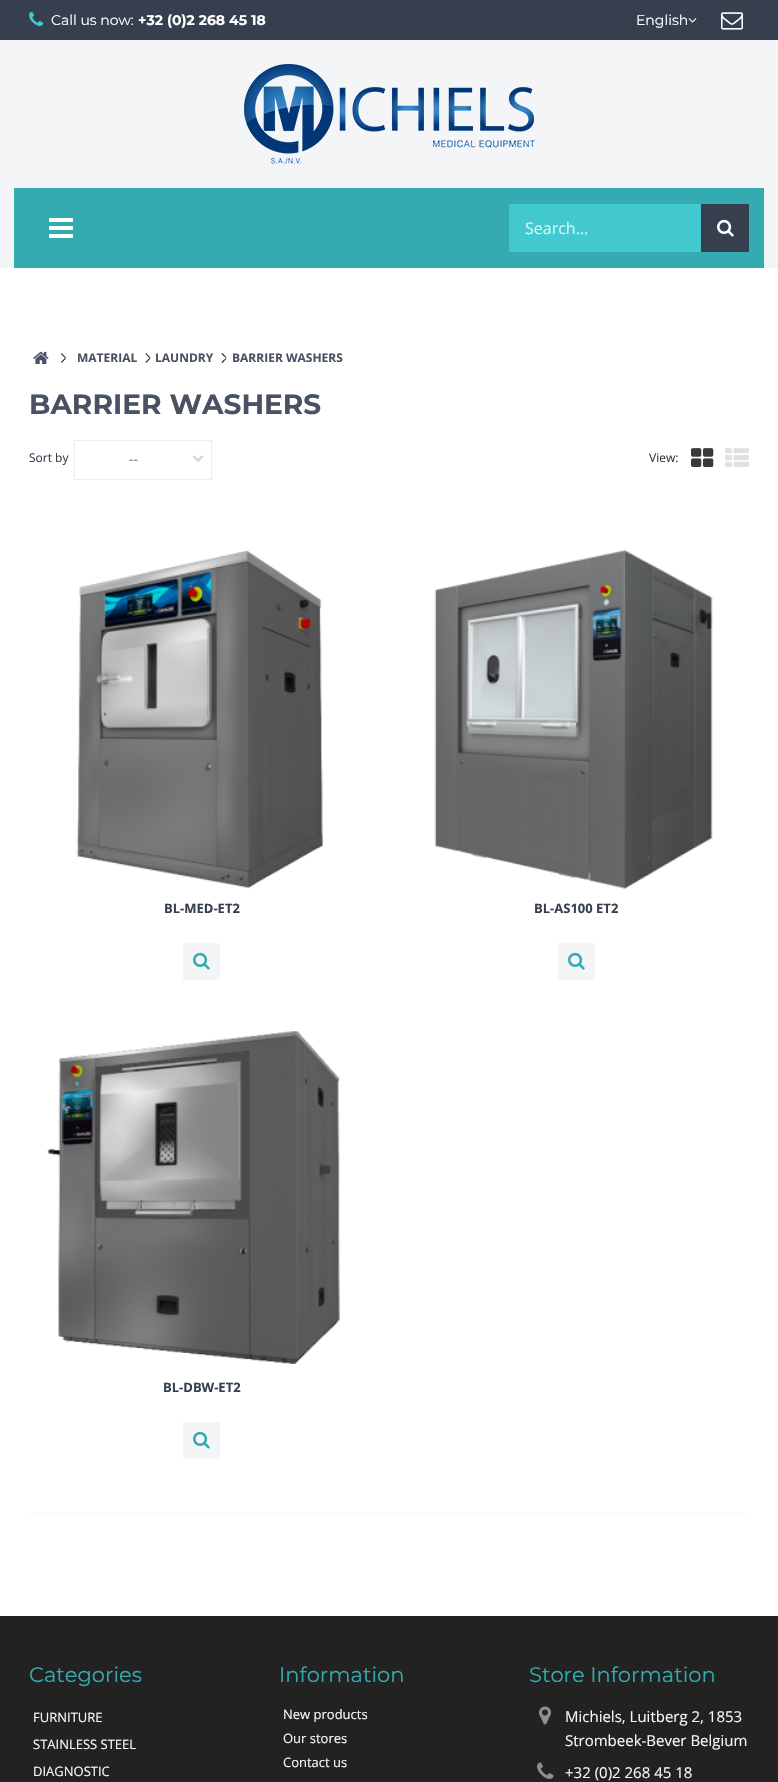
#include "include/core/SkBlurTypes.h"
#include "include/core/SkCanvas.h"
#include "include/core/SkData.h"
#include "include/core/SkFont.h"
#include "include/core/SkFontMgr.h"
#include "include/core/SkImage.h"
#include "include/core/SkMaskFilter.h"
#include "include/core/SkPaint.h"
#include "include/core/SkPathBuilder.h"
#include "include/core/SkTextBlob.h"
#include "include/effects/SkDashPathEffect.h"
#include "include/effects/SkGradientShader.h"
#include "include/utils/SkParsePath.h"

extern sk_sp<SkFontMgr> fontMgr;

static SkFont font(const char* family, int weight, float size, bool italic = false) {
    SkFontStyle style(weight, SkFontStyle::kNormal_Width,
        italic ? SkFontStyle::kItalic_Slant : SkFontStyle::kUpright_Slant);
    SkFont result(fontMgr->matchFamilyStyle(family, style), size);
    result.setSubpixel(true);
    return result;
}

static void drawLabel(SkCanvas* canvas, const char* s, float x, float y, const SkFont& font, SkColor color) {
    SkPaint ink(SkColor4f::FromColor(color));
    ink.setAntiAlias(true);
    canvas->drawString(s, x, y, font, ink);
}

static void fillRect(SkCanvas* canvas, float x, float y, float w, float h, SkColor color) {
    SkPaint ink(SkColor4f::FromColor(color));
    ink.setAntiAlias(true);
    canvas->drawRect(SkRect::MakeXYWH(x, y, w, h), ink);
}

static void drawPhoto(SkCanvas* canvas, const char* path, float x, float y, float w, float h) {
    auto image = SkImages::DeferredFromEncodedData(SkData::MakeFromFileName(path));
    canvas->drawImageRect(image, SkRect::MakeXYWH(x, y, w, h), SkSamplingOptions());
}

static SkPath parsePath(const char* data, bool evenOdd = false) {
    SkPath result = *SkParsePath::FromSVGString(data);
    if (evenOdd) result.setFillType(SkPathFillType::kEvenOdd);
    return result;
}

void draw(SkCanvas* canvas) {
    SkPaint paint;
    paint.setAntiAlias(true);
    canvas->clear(0xFFFFFFFF);
    fillRect(canvas, 0, 40, 778, 228, 0xFFF3F5F7);
    fillRect(canvas, 0, 0, 778, 40, 0xFF363F4E);
    drawPhoto(canvas, "assets/img1.png", 29, 11, 15, 15);
    SkFont font1 = font("Montserrat", 400, 14);
    drawLabel(canvas, "Call us now:", 51, 25, font1, 0xFFFFFFFF);
    SkFont font2 = font("Montserrat", 700, 14);
    drawLabel(canvas, "+32 (0)2 268 45 18", 138, 25, font2, 0xFFFFFFFF);
    drawLabel(canvas, "English", 636, 25, font1, 0xFFFFFFFF);
    drawPhoto(canvas, "assets/img2.png", 688, 18, 9, 5);
    drawPhoto(canvas, "assets/img3.png", 721, 12, 22, 18);
    drawPhoto(canvas, "assets/img4.png", 244, 64, 291, 100);
    fillRect(canvas, 14, 188, 750, 80, 0xFF34ABB1);
    drawPhoto(canvas, "assets/img5.png", 49, 218, 24, 20);
    fillRect(canvas, 509, 204, 192, 48, 0xFF42C9CF);
    SkFont font3 = font("Open Sans", 400, 16);
    drawLabel(canvas, "Search...", 525, 234, font3, 0xFFD9F4F5);
    fillRect(canvas, 701, 204, 48, 48, 0xFF363F4E);
    drawPhoto(canvas, "assets/img6.png", 717, 219, 17, 18);
    drawPhoto(canvas, "assets/img7.png", 33, 351, 16, 13);
    paint.setColor(0xFF222222);
    canvas->drawPath(parsePath("M61.5 353L66 357.5L65 358L61 354ZM65 358L66 358.5L61.5 363L61 362Z"), paint);
    SkFont font4 = font("Open Sans", 700, 12);
    drawLabel(canvas, "MATERIAL", 77, 362, font4, 0xFF495263);
    canvas->drawPath(parsePath("M146 353L150.5 357.5L149.5 358L145.5 354ZM149.5 358L150.5 358.5L146 363L145.5 362Z"), paint);
    drawLabel(canvas, "LAUNDRY", 155, 362, font4, 0xFF495263);
    canvas->drawPath(parsePath("M222.5 353L226.5 357.5L226 358L221.5 354ZM226 358L226.5 358.5L222.5 363L221.5 362Z"), paint);
    drawLabel(canvas, "BARRIER WASHERS", 232, 362, font4, 0xFF495263);
    SkFont font5 = font("Montserrat", 700, 28);
    drawLabel(canvas, "BARRIER WASHERS", 29, 414, font5, 0xFF495263);
    SkFont font6 = font("Open Sans", 400, 12);
    drawLabel(canvas, "Sort by", 29, 462, font6, 0xFF363F4E);
    drawPhoto(canvas, "assets/img8.png", 192, 455, 12, 7);
    paint.setStroke(true);
    paint.setStrokeWidth(1);
    paint.setColor(0xFFEDEDED);
    canvas->drawRect(SkRect::MakeXYWH(74.5f, 440.5f, 137, 39), paint);
    SkFont font7 = font("Open Sans", 400, 14);
    drawLabel(canvas, "--", 129, 464, font7, 0xFF777777);
    drawLabel(canvas, "View:", 649, 462, font6, 0xFF3A3A3A);
    drawPhoto(canvas, "assets/img9.png", 691, 448, 23, 19);
    drawPhoto(canvas, "assets/img10.png", 725, 448, 24, 19);
    drawPhoto(canvas, "assets/img11.png", 76, 550, 248, 339);
    SkFont font8 = font("Open Sans", 700, 13);
    drawLabel(canvas, "BL-MED-ET2", 164, 913, font8, 0xFF363F4E);
    fillRect(canvas, 183, 943, 37, 37, 0xFFF3F5F7);
    drawPhoto(canvas, "assets/img12.png", 193, 952, 17, 18);
    drawPhoto(canvas, "assets/img13.png", 434, 549, 279, 340);
    drawLabel(canvas, "BL-AS100 ET2", 534, 913, font8, 0xFF363F4E);
    fillRect(canvas, 558, 943, 37, 37, 0xFFF3F5F7);
    drawPhoto(canvas, "assets/img12.png", 568, 952, 17, 18);
    drawPhoto(canvas, "assets/img14.png", 47, 1031, 293, 333);
    drawLabel(canvas, "BL-DBW-ET2", 163, 1392, font8, 0xFF363F4E);
    fillRect(canvas, 183, 1422, 37, 37, 0xFFF3F5F7);
    drawPhoto(canvas, "assets/img12.png", 193, 1431, 17, 18);
    fillRect(canvas, 29, 1513, 720, 1, 0xFFF4F7F7);
    fillRect(canvas, 0, 1616, 778, 166, 0xFF222222);
    SkFont font9 = font("Montserrat", 400, 21);
    drawLabel(canvas, "Categories", 29, 1682, font9, 0xFF34ABB1);
    SkFont font10 = font("Open Sans", 400, 13);
    drawLabel(canvas, "FURNITURE", 33, 1722, font10, 0xFFF4F7F7);
    drawLabel(canvas, "STAINLESS STEEL", 33, 1749, font10, 0xFFF4F7F7);
    drawLabel(canvas, "DIAGNOSTIC", 33, 1776, font10, 0xFFF4F7F7);
    drawLabel(canvas, "Information", 279, 1682, font9, 0xFF34ABB1);
    drawLabel(canvas, "New products", 283, 1719, font10, 0xFFF4F7F7);
    drawLabel(canvas, "Our stores", 283, 1743, font10, 0xFFF4F7F7);
    drawLabel(canvas, "Contact us", 283, 1767, font10, 0xFFF4F7F7);
    drawLabel(canvas, "Store Information", 529, 1682, font9, 0xFF34ABB1);
    drawPhoto(canvas, "assets/img15.png", 539, 1706, 12, 19);
    SkFont font11 = font("Open Sans", 400, 15);
    drawLabel(canvas, "Michiels, Luitberg 2, 1853", 565, 1722, font11, 0xFFF4F7F7);
    drawLabel(canvas, "Strombeek-Bever Belgium", 565, 1746, font11, 0xFFF4F7F7);
    drawPhoto(canvas, "assets/img16.png", 537, 1762, 17, 17);
    drawLabel(canvas, "+32 (0)2 268 45 18", 565, 1778, font11, 0xFFF4F7F7);
}
